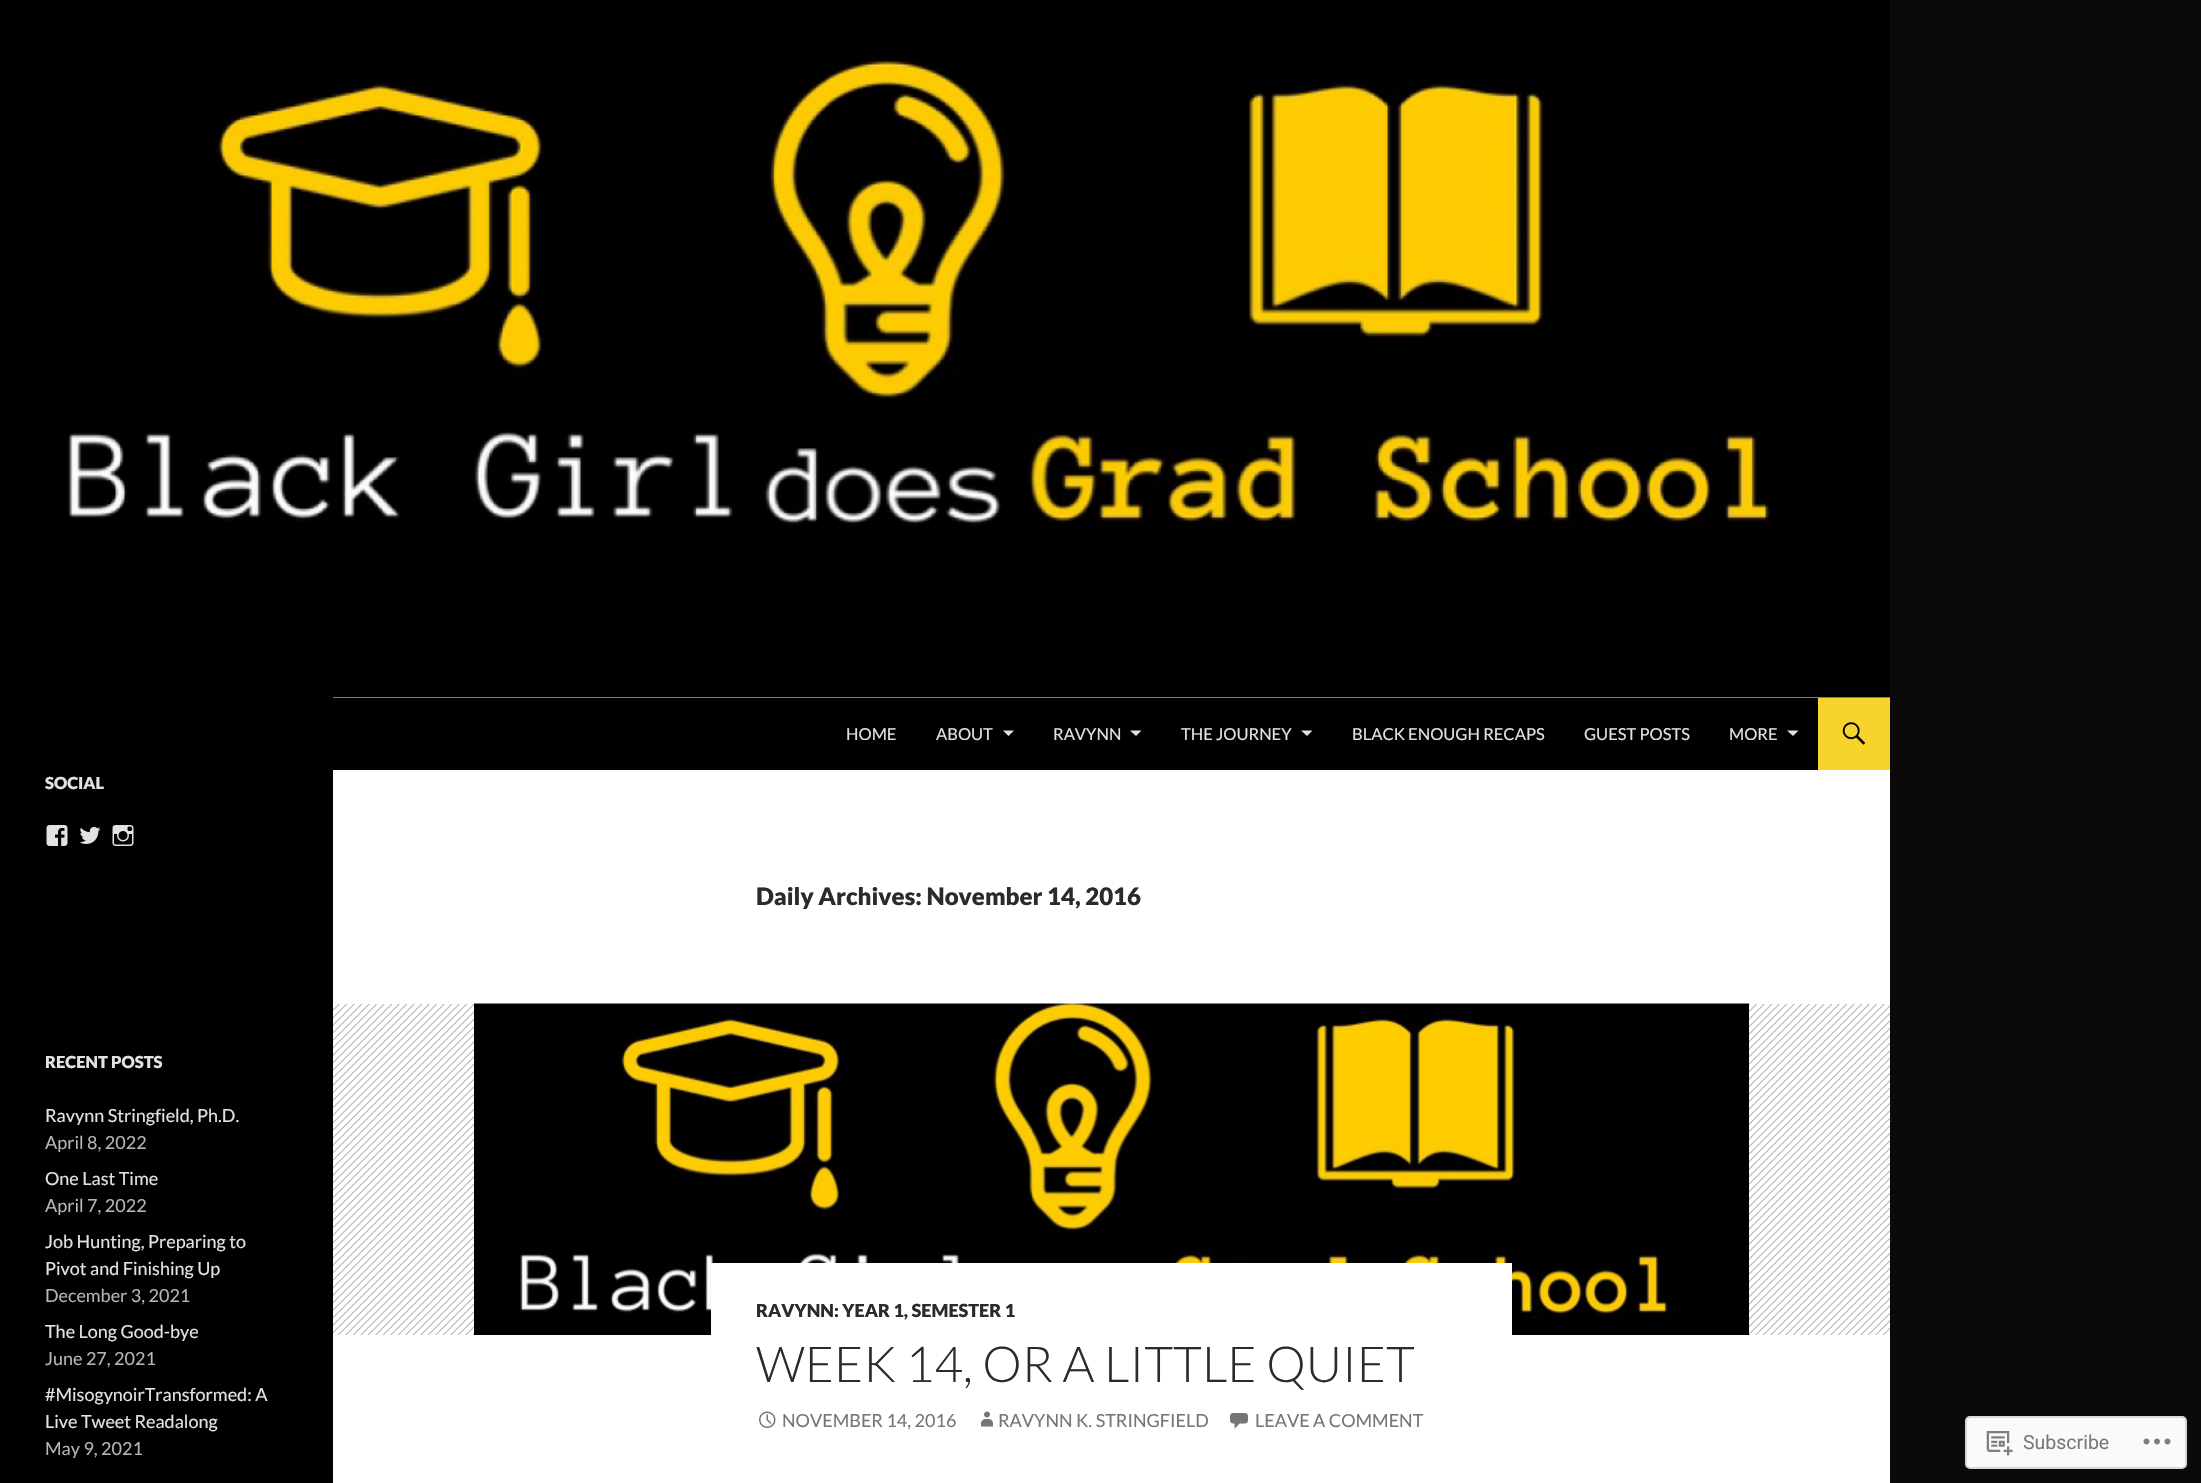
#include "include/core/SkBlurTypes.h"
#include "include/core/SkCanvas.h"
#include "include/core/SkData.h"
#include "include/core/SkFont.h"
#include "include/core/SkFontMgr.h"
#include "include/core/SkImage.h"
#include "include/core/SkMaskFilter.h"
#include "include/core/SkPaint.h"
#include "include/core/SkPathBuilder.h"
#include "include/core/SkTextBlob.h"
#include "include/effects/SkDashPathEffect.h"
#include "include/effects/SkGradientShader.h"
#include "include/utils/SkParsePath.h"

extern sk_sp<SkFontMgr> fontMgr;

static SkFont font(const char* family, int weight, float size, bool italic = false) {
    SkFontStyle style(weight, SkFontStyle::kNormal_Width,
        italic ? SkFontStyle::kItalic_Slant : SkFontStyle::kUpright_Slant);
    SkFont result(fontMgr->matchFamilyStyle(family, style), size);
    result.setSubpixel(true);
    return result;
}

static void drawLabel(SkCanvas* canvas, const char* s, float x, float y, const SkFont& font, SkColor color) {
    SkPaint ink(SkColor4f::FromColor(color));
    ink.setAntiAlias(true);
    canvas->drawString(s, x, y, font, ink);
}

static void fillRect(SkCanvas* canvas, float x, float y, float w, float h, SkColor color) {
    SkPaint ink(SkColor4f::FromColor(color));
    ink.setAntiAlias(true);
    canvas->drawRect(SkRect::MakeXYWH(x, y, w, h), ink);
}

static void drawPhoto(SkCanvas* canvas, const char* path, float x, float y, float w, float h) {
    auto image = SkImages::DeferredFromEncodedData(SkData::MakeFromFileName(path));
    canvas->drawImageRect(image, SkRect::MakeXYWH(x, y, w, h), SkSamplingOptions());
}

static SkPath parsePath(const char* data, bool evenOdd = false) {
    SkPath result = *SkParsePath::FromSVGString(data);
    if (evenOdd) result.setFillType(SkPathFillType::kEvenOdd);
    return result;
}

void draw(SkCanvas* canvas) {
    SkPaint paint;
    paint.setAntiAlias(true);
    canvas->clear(0xFF0B0909);
    fillRect(canvas, 333, 697, 1557, 786, 0xFFFFFFFF);
    fillRect(canvas, 0, 0, 333, 1483, 0xFF000000);
    drawPhoto(canvas, "assets/img1.png", 68, 0, 1822, 698);
    fillRect(canvas, 333, 698, 1485, 72, 0xFF000000);
    SkFont font1 = font("Lato", 400, 16.5f);
    drawLabel(canvas, "HOME", 846, 740, font1, 0xFFE2E2E2);
    drawLabel(canvas, "ABOUT", 936, 740, font1, 0xFFE2E2E2);
    paint.setColor(0xFFE2E2E2);
    canvas->drawPath(parsePath("M1003 730.5H1014L1008.5 736Z"), paint);
    drawLabel(canvas, "RAVYNN", 1053, 740, font1, 0xFFE2E2E2);
    canvas->drawPath(parsePath("M1130 730.5H1141.5L1136 736Z"), paint);
    drawLabel(canvas, "THE JOURNEY", 1181, 740, font1, 0xFFE2E2E2);
    canvas->drawPath(parsePath("M1301 730.5H1312.5L1307 736Z"), paint);
    drawLabel(canvas, "BLACK ENOUGH RECAPS", 1352, 740, font1, 0xFFE2E2E2);
    drawLabel(canvas, "GUEST POSTS", 1584, 740, font1, 0xFFE2E2E2);
    drawLabel(canvas, "MORE", 1729, 740, font1, 0xFFE2E2E2);
    canvas->drawPath(parsePath("M1787 730.5H1798.5L1793 736Z"), paint);
    fillRect(canvas, 1818, 698, 72, 72, 0xFFF6D42C);
    drawPhoto(canvas, "assets/img2.png", 1842, 722, 24, 23);
    SkFont font2 = font("Lato", 900, 16.5f);
    drawLabel(canvas, "SOCIAL", 45, 789, font2, 0xFFE2E2E2);
    drawPhoto(canvas, "assets/img3.png", 46, 825, 22, 21);
    drawPhoto(canvas, "assets/img4.png", 79, 826, 22, 18);
    drawPhoto(canvas, "assets/img5.png", 112, 825, 22, 21);
    drawLabel(canvas, "RECENT POSTS", 45, 1068, font2, 0xFFE2E2E2);
    SkFont font3 = font("Lato", 400, 18);
    drawLabel(canvas, "Ravynn Stringfield, Ph.D.", 45, 1122, font3, 0xFFE2E2E2);
    drawLabel(canvas, "April 8, 2022", 45, 1149, font3, 0xFFB5B5B5);
    drawLabel(canvas, "One Last Time", 45, 1185, font3, 0xFFE2E2E2);
    drawLabel(canvas, "April 7, 2022", 45, 1212, font3, 0xFFB5B5B5);
    drawLabel(canvas, "Job Hunting, Preparing to", 45, 1248, font3, 0xFFE2E2E2);
    drawLabel(canvas, "Pivot and Finishing Up", 45, 1275, font3, 0xFFE2E2E2);
    drawLabel(canvas, "December 3, 2021", 45, 1302, font3, 0xFFB5B5B5);
    drawLabel(canvas, "The Long Good-bye", 45, 1338, font3, 0xFFE2E2E2);
    drawLabel(canvas, "June 27, 2021", 45, 1365, font3, 0xFFB5B5B5);
    drawLabel(canvas, "#MisogynoirTransformed: A", 45, 1401, font3, 0xFFE2E2E2);
    drawLabel(canvas, "Live Tweet Readalong", 45, 1428, font3, 0xFFE2E2E2);
    drawLabel(canvas, "May 9, 2021", 45, 1455, font3, 0xFFB5B5B5);
    SkFont font4 = font("Lato", 900, 24);
    drawLabel(canvas, "Daily Archives: November 14, 2016", 756, 905, font4, 0xFF2B2B2B);
    fillRect(canvas, 333, 1004, 1557, 331, 0xFFB2B2B2);
    drawPhoto(canvas, "assets/img6.png", 333, 1004, 1557, 331);
    drawPhoto(canvas, "assets/img7.png", 474, 1003, 1275, 332);
    fillRect(canvas, 711, 1263, 801, 72, 0xFFFFFFFF);
    SkFont font5 = font("Lato", 900, 18);
    drawLabel(canvas, "RAVYNN: YEAR 1, SEMESTER 1", 756, 1317, font5, 0xFF2B2B2B);
    SkFont font6 = font("Lato", 300, 49.5f);
    drawLabel(canvas, "WEEK 14, OR A LITTLE QUIET", 756, 1382, font6, 0xFF2B2B2B);
    drawPhoto(canvas, "assets/img8.png", 759, 1411, 17, 17);
    drawLabel(canvas, "NOVEMBER 14, 2016", 782, 1427, font3, 0xFF767676);
    drawPhoto(canvas, "assets/img9.png", 981, 1411, 12, 16);
    drawLabel(canvas, "RAVYNN K. STRINGFIELD", 998, 1427, font3, 0xFF767676);
    drawPhoto(canvas, "assets/img10.png", 1230, 1413, 18, 16);
    drawLabel(canvas, "LEAVE A COMMENT", 1255, 1427, font3, 0xFF767676);
    paint.setColor(0xFFFAFAFA);
    canvas->drawRoundRect(SkRect::MakeXYWH(1966, 1417, 220, 51), 4, 4, paint);
    paint.setStroke(true);
    paint.setStrokeWidth(2);
    paint.setColor(0xFFD8D8DA);
    canvas->drawRoundRect(SkRect::MakeXYWH(1966, 1417, 220, 51), 4, 4, paint);
    drawPhoto(canvas, "assets/img11.png", 1986, 1431, 27, 25);
    SkFont font7 = font("Roboto", 400, 19.5f);
    drawLabel(canvas, "Subscribe", 2023, 1449, font7, 0xFF767A80);
    drawPhoto(canvas, "assets/img12.png", 2143, 1438, 28, 7);
}
